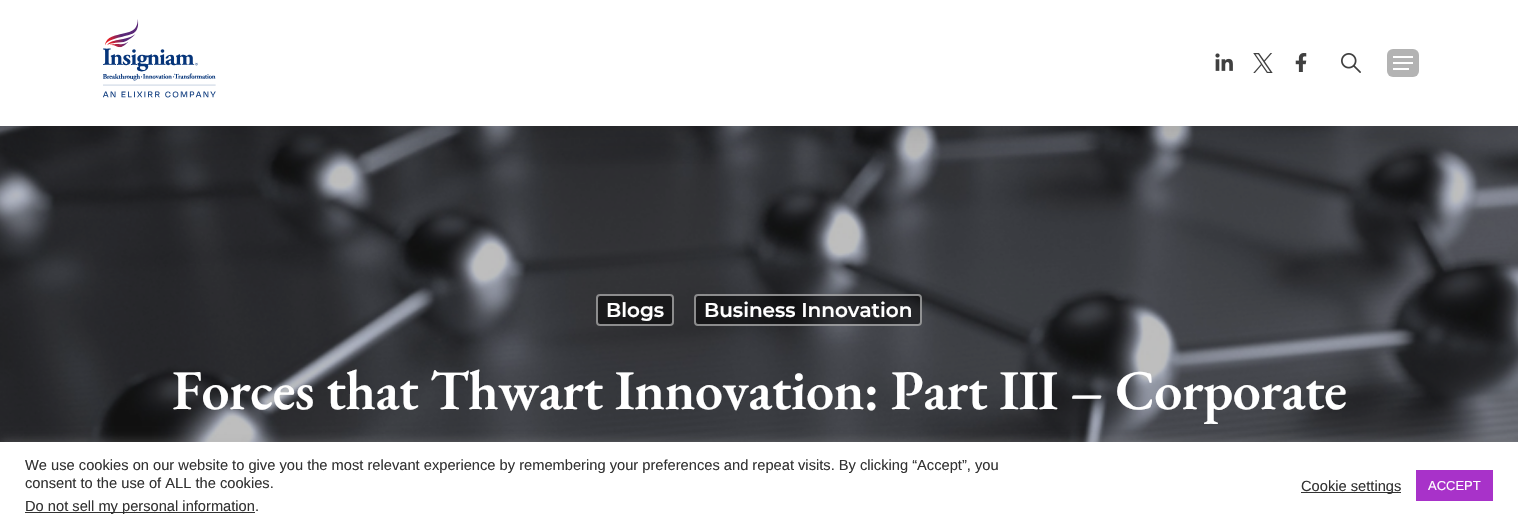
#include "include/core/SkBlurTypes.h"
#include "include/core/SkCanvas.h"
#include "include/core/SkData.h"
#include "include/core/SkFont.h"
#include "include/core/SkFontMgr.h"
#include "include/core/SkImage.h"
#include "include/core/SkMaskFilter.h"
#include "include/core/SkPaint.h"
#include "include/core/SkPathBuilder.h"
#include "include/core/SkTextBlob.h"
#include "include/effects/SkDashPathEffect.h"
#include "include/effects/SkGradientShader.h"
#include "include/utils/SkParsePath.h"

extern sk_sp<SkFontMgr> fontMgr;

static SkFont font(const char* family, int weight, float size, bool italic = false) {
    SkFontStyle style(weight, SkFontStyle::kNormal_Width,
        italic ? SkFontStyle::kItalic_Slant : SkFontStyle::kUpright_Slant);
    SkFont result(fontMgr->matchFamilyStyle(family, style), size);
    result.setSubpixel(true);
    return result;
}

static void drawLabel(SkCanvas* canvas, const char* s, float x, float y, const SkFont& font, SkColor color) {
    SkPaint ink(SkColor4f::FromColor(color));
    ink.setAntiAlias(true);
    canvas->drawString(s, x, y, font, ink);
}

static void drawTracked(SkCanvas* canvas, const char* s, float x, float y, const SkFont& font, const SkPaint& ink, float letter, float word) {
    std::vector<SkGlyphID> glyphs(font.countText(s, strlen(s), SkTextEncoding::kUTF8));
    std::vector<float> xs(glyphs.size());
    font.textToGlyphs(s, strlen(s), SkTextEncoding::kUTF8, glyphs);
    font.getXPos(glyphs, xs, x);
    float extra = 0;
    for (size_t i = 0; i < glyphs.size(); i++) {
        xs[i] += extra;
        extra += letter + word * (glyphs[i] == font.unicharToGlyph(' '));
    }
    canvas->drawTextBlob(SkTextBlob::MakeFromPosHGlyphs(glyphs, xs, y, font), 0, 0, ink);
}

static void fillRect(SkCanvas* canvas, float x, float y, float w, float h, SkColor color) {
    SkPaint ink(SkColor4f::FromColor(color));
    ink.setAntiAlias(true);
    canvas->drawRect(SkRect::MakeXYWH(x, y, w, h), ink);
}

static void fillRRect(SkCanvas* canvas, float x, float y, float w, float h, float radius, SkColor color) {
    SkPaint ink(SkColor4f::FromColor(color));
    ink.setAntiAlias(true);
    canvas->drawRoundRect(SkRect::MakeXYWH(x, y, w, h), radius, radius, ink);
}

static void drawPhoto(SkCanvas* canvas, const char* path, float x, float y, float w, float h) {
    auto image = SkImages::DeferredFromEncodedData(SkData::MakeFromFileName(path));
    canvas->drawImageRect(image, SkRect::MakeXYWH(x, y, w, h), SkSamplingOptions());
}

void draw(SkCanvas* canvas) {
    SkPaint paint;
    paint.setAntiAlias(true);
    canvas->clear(0xFFFFFFFF);
    drawPhoto(canvas, "assets/img6.png", 0, 126, 1518, 316);
    paint.setColor(0x29000000);
    paint.setMaskFilter(SkMaskFilter::MakeBlur(kNormal_SkBlurStyle, 22.5f));
    canvas->drawRect(SkRect::MakeXYWH(0, 3, 1518, 126), paint);
    paint.setMaskFilter(nullptr);
    fillRect(canvas, 0, 0, 1518, 126, 0xFFFFFFFF);
    drawPhoto(canvas, "assets/img1.png", 103, 19, 113, 79);
    drawPhoto(canvas, "assets/img2.png", 1215, 53, 18, 18);
    drawPhoto(canvas, "assets/img3.png", 1253, 53, 20, 20);
    drawPhoto(canvas, "assets/img4.png", 1295, 53, 12, 19);
    drawPhoto(canvas, "assets/img5.png", 1341, 53, 20, 20);
    fillRRect(canvas, 1387, 49, 32, 28, 6, 0xFFB3B3B3);
    fillRect(canvas, 1393, 62, 20, 2, 0xFFFFFFFF);
    fillRect(canvas, 1393, 56, 20, 2, 0xFFFFFFFF);
    fillRect(canvas, 1393, 68, 16, 2, 0xFFFFFFFF);
    fillRRect(canvas, 596, 294, 78, 32, 4, 0x80000000);
    paint.setStroke(true);
    paint.setStrokeWidth(2);
    paint.setColor(0x80FFFFFF);
    canvas->drawRoundRect(SkRect::MakeXYWH(597, 295, 76, 30), 3, 3, paint);
    SkFont font1 = font("Montserrat", 600, 20);
    drawLabel(canvas, "Blogs", 606, 317, font1, 0xFFFFFFFF);
    fillRRect(canvas, 694, 294, 228, 32, 4, 0x80000000);
    canvas->drawRoundRect(SkRect::MakeXYWH(695, 295, 226, 30), 3, 3, paint);
    drawLabel(canvas, "Business Innovation", 704, 317, font1, 0xFFFFFFFF);
    SkFont font2 = font("EB Garamond", 600, 56);
    paint.setStroke(false);
    paint.setColor(0xFFFFFFFF);
    drawTracked(canvas, "Forces that Thwart Innovation: Part III – Corporate", 172, 409, font2, paint, -0.5f, 0);
    paint.setColor(0x4DACABAB);
    paint.setMaskFilter(SkMaskFilter::MakeBlur(kNormal_SkBlurStyle, 5));
    canvas->drawRect(SkRect::MakeXYWH(0, 441, 1518, 87), paint);
    paint.setMaskFilter(nullptr);
    fillRect(canvas, 0, 442, 1518, 87, 0xFFFFFFFF);
    SkFont font3 = font("Liberation Sans", 400, 14.67f);
    drawLabel(canvas, "We use cookies on our website to give you the most relevant experience by remembering your preferences and repeat visits. By clicking “Accept”, you", 25, 470, font3, 0xFF333333);
    drawLabel(canvas, "consent to the use of ALL the cookies.", 25, 488, font3, 0xFF333333);
    fillRect(canvas, 25, 512, 230, 1, 0xFF333333);
    drawLabel(canvas, "Do not sell my personal information.", 25, 511, font3, 0xFF333333);
    fillRect(canvas, 1301, 492, 100, 1, 0xFF333333);
    drawLabel(canvas, "Cookie settings", 1301, 491, font3, 0xFF333333);
    fillRect(canvas, 1416, 470, 77, 31, 0xFFA832C9);
    SkFont font4 = font("Liberation Sans", 400, 13);
    drawLabel(canvas, "ACCEPT", 1428, 490, font4, 0xFFFFFFFF);
}
